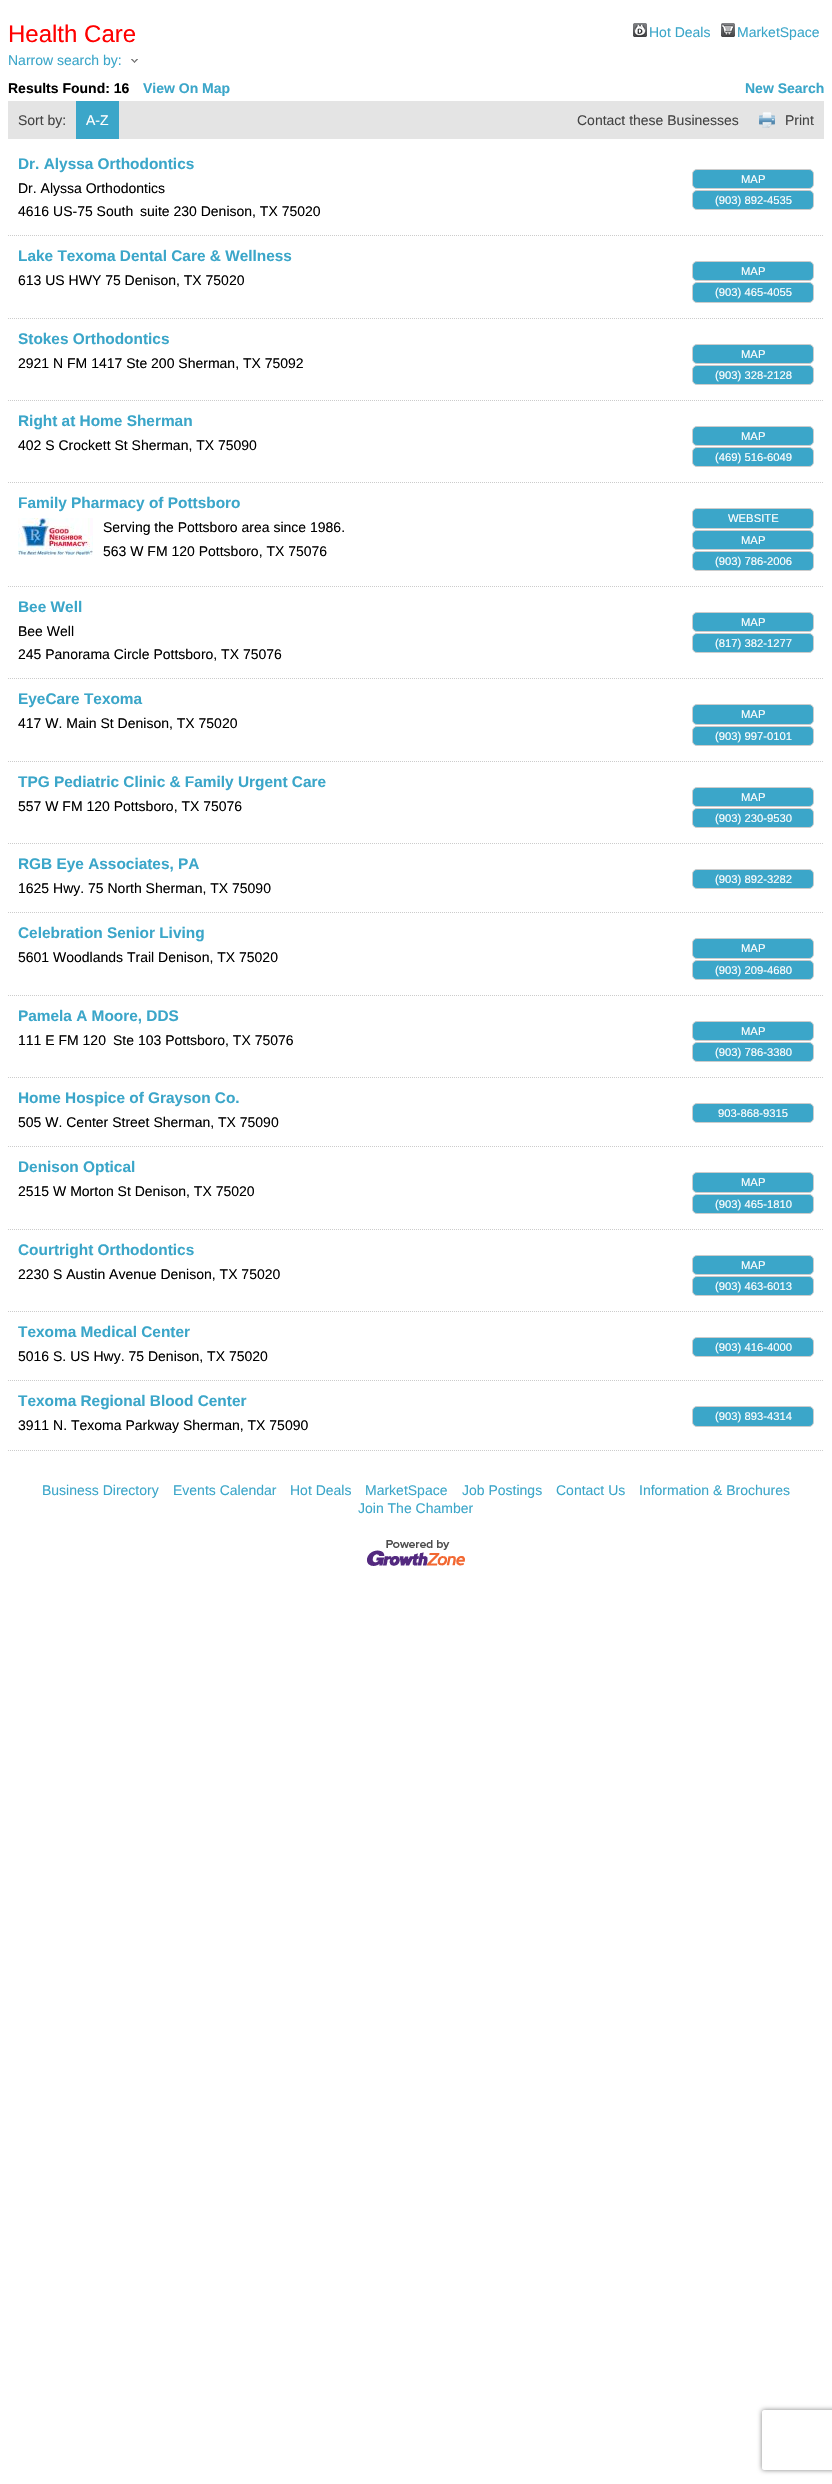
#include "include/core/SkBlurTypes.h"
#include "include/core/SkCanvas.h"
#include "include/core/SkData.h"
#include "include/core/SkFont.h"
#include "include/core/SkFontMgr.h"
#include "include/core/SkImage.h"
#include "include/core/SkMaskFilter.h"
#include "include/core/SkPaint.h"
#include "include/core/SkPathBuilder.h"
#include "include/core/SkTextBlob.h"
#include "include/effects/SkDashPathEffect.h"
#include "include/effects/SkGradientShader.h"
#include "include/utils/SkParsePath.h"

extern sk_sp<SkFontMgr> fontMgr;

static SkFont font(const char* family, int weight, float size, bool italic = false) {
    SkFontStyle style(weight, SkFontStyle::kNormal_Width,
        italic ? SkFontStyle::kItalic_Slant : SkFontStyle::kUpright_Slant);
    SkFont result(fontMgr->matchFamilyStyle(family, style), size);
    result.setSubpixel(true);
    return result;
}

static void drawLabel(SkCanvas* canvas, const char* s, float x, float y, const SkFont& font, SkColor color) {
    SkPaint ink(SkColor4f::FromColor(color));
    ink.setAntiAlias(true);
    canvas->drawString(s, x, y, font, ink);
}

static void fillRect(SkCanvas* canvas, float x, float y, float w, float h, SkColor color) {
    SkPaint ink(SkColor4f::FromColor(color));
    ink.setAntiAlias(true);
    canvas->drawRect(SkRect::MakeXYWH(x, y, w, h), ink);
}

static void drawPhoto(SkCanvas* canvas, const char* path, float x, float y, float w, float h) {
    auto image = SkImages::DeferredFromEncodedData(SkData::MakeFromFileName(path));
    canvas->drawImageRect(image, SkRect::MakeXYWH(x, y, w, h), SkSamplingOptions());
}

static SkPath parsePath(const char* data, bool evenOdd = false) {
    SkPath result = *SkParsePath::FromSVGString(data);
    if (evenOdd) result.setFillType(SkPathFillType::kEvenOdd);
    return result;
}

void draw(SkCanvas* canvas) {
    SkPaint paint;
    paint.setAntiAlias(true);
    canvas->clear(0xFFFFFFFF);
    SkFont font1 = font("Liberation Sans", 400, 24);
    drawLabel(canvas, "Health Care", 8, 42, font1, 0xFFFF0000);
    drawPhoto(canvas, "assets/img1.png", 633, 23, 14, 14);
    SkFont font2 = font("Liberation Sans", 400, 14);
    drawLabel(canvas, "Hot Deals", 649, 37, font2, 0xFF3BA6C9);
    drawPhoto(canvas, "assets/img2.png", 721, 23, 14, 14);
    drawLabel(canvas, "MarketSpace", 737, 37, font2, 0xFF3BA6C9);
    drawLabel(canvas, "Narrow search by:", 8, 65, font2, 0xFF3BA6C9);
    drawPhoto(canvas, "assets/img3.png", 131, 59, 7, 4);
    SkFont font3 = font("Liberation Sans", 700, 14);
    drawLabel(canvas, "Results Found: 16", 8, 93, font3, 0xFF000000);
    drawLabel(canvas, "View On Map", 143, 93, font3, 0xFF3BA6C9);
    drawLabel(canvas, "New Search", 745, 93, font3, 0xFF3BA6C9);
    fillRect(canvas, 8, 101, 816, 38, 0xFFE4E4E4);
    drawLabel(canvas, "Sort by:", 18, 125, font2, 0xFF444444);
    fillRect(canvas, 76, 101, 43, 38, 0xFF3BA6C9);
    drawLabel(canvas, "A-Z", 86, 125, font2, 0xFFFFFFFF);
    drawLabel(canvas, "Contact these Businesses", 577, 125, font2, 0xFF444444);
    drawPhoto(canvas, "assets/img4.png", 759, 112, 16, 16);
    drawLabel(canvas, "Print", 785, 125, font2, 0xFF444444);
    paint.setStroke(true);
    paint.setStrokeWidth(1);
    paint.setColor(0xFFCCCCCC);
    paint.setPathEffect(SkDashPathEffect::Make({{1, 1}}, 0));
    canvas->drawPath(parsePath("M8 235.5H824"), paint);
    paint.setPathEffect(nullptr);
    SkFont font4 = font("Liberation Sans", 700, 15.4f);
    drawLabel(canvas, "Dr. Alyssa Orthodontics", 18, 169, font4, 0xFF3BA6C9);
    drawLabel(canvas, "Dr. Alyssa Orthodontics", 18, 193, font2, 0xFF000000);
    drawLabel(canvas, "4616 US-75 South", 18, 216, font2, 0xFF000000);
    drawLabel(canvas, "suite 230 Denison, TX 75020", 140, 216, font2, 0xFF000000);
    paint.setStroke(false);
    paint.setColor(0xFF3BA6C9);
    canvas->drawRoundRect(SkRect::MakeXYWH(692.5f, 169.5f, 121, 19), 4.5f, 4.5f, paint);
    paint.setStroke(true);
    paint.setColor(0xFFCCCCCC);
    canvas->drawRoundRect(SkRect::MakeXYWH(692.5f, 169.5f, 121, 19), 4.5f, 4.5f, paint);
    SkFont font5 = font("Liberation Sans", 400, 11.25f);
    drawLabel(canvas, "MAP", 741, 183, font5, 0xFFFFFFFF);
    paint.setStroke(false);
    paint.setColor(0xFF3BA6C9);
    canvas->drawRoundRect(SkRect::MakeXYWH(692.5f, 190.5f, 121, 19), 4.5f, 4.5f, paint);
    paint.setStroke(true);
    paint.setColor(0xFFCCCCCC);
    canvas->drawRoundRect(SkRect::MakeXYWH(692.5f, 190.5f, 121, 19), 4.5f, 4.5f, paint);
    drawLabel(canvas, "(903) 892-4535", 715, 204, font5, 0xFFFFFFFF);
    paint.setPathEffect(SkDashPathEffect::Make({{1, 1}}, 0));
    canvas->drawPath(parsePath("M8 318.5H824"), paint);
    paint.setPathEffect(nullptr);
    drawLabel(canvas, "Lake Texoma Dental Care & Wellness", 18, 261, font4, 0xFF3BA6C9);
    drawLabel(canvas, "613 US HWY 75 Denison, TX 75020", 18, 285, font2, 0xFF000000);
    paint.setStroke(false);
    paint.setColor(0xFF3BA6C9);
    canvas->drawRoundRect(SkRect::MakeXYWH(692.5f, 261.5f, 121, 19), 4.5f, 4.5f, paint);
    paint.setStroke(true);
    paint.setColor(0xFFCCCCCC);
    canvas->drawRoundRect(SkRect::MakeXYWH(692.5f, 261.5f, 121, 19), 4.5f, 4.5f, paint);
    drawLabel(canvas, "MAP", 741, 275, font5, 0xFFFFFFFF);
    paint.setStroke(false);
    paint.setColor(0xFF3BA6C9);
    canvas->drawRoundRect(SkRect::MakeXYWH(692.5f, 282.5f, 121, 20), 4.5f, 4.5f, paint);
    paint.setStroke(true);
    paint.setColor(0xFFCCCCCC);
    canvas->drawRoundRect(SkRect::MakeXYWH(692.5f, 282.5f, 121, 20), 4.5f, 4.5f, paint);
    drawLabel(canvas, "(903) 465-4055", 715, 296, font5, 0xFFFFFFFF);
    paint.setPathEffect(SkDashPathEffect::Make({{1, 1}}, 0));
    canvas->drawPath(parsePath("M8 400.5H824"), paint);
    paint.setPathEffect(nullptr);
    drawLabel(canvas, "Stokes Orthodontics", 18, 344, font4, 0xFF3BA6C9);
    drawLabel(canvas, "2921 N FM 1417 Ste 200 Sherman, TX 75092", 18, 368, font2, 0xFF000000);
    paint.setStroke(false);
    paint.setColor(0xFF3BA6C9);
    canvas->drawRoundRect(SkRect::MakeXYWH(692.5f, 344.5f, 121, 19), 4.5f, 4.5f, paint);
    paint.setStroke(true);
    paint.setColor(0xFFCCCCCC);
    canvas->drawRoundRect(SkRect::MakeXYWH(692.5f, 344.5f, 121, 19), 4.5f, 4.5f, paint);
    drawLabel(canvas, "MAP", 741, 358, font5, 0xFFFFFFFF);
    paint.setStroke(false);
    paint.setColor(0xFF3BA6C9);
    canvas->drawRoundRect(SkRect::MakeXYWH(692.5f, 365.5f, 121, 19), 4.5f, 4.5f, paint);
    paint.setStroke(true);
    paint.setColor(0xFFCCCCCC);
    canvas->drawRoundRect(SkRect::MakeXYWH(692.5f, 365.5f, 121, 19), 4.5f, 4.5f, paint);
    drawLabel(canvas, "(903) 328-2128", 715, 379, font5, 0xFFFFFFFF);
    paint.setPathEffect(SkDashPathEffect::Make({{1, 1}}, 0));
    canvas->drawPath(parsePath("M8 482.5H824"), paint);
    paint.setPathEffect(nullptr);
    drawLabel(canvas, "Right at Home Sherman", 18, 426, font4, 0xFF3BA6C9);
    drawLabel(canvas, "402 S Crockett St Sherman, TX 75090", 18, 450, font2, 0xFF000000);
    paint.setStroke(false);
    paint.setColor(0xFF3BA6C9);
    canvas->drawRoundRect(SkRect::MakeXYWH(692.5f, 426.5f, 121, 19), 4.5f, 4.5f, paint);
    paint.setStroke(true);
    paint.setColor(0xFFCCCCCC);
    canvas->drawRoundRect(SkRect::MakeXYWH(692.5f, 426.5f, 121, 19), 4.5f, 4.5f, paint);
    drawLabel(canvas, "MAP", 741, 440, font5, 0xFFFFFFFF);
    paint.setStroke(false);
    paint.setColor(0xFF3BA6C9);
    canvas->drawRoundRect(SkRect::MakeXYWH(692.5f, 447.5f, 121, 19), 4.5f, 4.5f, paint);
    paint.setStroke(true);
    paint.setColor(0xFFCCCCCC);
    canvas->drawRoundRect(SkRect::MakeXYWH(692.5f, 447.5f, 121, 19), 4.5f, 4.5f, paint);
    drawLabel(canvas, "(469) 516-6049", 715, 461, font5, 0xFFFFFFFF);
    paint.setPathEffect(SkDashPathEffect::Make({{1, 1}}, 0));
    canvas->drawPath(parsePath("M8 586.5H824"), paint);
    paint.setPathEffect(nullptr);
    drawLabel(canvas, "Family Pharmacy of Pottsboro", 18, 508, font4, 0xFF3BA6C9);
    drawPhoto(canvas, "assets/img5.png", 18, 518, 75, 37);
    drawLabel(canvas, "Serving the Pottsboro area since 1986.", 103, 532, font2, 0xFF000000);
    drawLabel(canvas, "563 W FM 120 Pottsboro, TX 75076", 103, 556, font2, 0xFF000000);
    paint.setStroke(false);
    paint.setColor(0xFF3BA6C9);
    canvas->drawRoundRect(SkRect::MakeXYWH(692.5f, 508.5f, 121, 20), 4.5f, 4.5f, paint);
    paint.setStroke(true);
    paint.setColor(0xFFCCCCCC);
    canvas->drawRoundRect(SkRect::MakeXYWH(692.5f, 508.5f, 121, 20), 4.5f, 4.5f, paint);
    drawLabel(canvas, "WEBSITE", 728, 522, font5, 0xFFFFFFFF);
    paint.setStroke(false);
    paint.setColor(0xFF3BA6C9);
    canvas->drawRoundRect(SkRect::MakeXYWH(692.5f, 530.5f, 121, 19), 4.5f, 4.5f, paint);
    paint.setStroke(true);
    paint.setColor(0xFFCCCCCC);
    canvas->drawRoundRect(SkRect::MakeXYWH(692.5f, 530.5f, 121, 19), 4.5f, 4.5f, paint);
    drawLabel(canvas, "MAP", 741, 544, font5, 0xFFFFFFFF);
    paint.setStroke(false);
    paint.setColor(0xFF3BA6C9);
    canvas->drawRoundRect(SkRect::MakeXYWH(692.5f, 551.5f, 121, 19), 4.5f, 4.5f, paint);
    paint.setStroke(true);
    paint.setColor(0xFFCCCCCC);
    canvas->drawRoundRect(SkRect::MakeXYWH(692.5f, 551.5f, 121, 19), 4.5f, 4.5f, paint);
    drawLabel(canvas, "(903) 786-2006", 715, 565, font5, 0xFFFFFFFF);
    paint.setPathEffect(SkDashPathEffect::Make({{1, 1}}, 0));
    canvas->drawPath(parsePath("M8 678.5H824"), paint);
    paint.setPathEffect(nullptr);
    drawLabel(canvas, "Bee Well", 18, 612, font4, 0xFF3BA6C9);
    drawLabel(canvas, "Bee Well", 18, 636, font2, 0xFF000000);
    drawLabel(canvas, "245 Panorama Circle Pottsboro, TX 75076", 18, 659, font2, 0xFF000000);
    paint.setStroke(false);
    paint.setColor(0xFF3BA6C9);
    canvas->drawRoundRect(SkRect::MakeXYWH(692.5f, 612.5f, 121, 19), 4.5f, 4.5f, paint);
    paint.setStroke(true);
    paint.setColor(0xFFCCCCCC);
    canvas->drawRoundRect(SkRect::MakeXYWH(692.5f, 612.5f, 121, 19), 4.5f, 4.5f, paint);
    drawLabel(canvas, "MAP", 741, 626, font5, 0xFFFFFFFF);
    paint.setStroke(false);
    paint.setColor(0xFF3BA6C9);
    canvas->drawRoundRect(SkRect::MakeXYWH(692.5f, 633.5f, 121, 19), 4.5f, 4.5f, paint);
    paint.setStroke(true);
    paint.setColor(0xFFCCCCCC);
    canvas->drawRoundRect(SkRect::MakeXYWH(692.5f, 633.5f, 121, 19), 4.5f, 4.5f, paint);
    drawLabel(canvas, "(817) 382-1277", 715, 647, font5, 0xFFFFFFFF);
    paint.setPathEffect(SkDashPathEffect::Make({{1, 1}}, 0));
    canvas->drawPath(parsePath("M8 761.5H824"), paint);
    paint.setPathEffect(nullptr);
    drawLabel(canvas, "EyeCare Texoma", 18, 704, font4, 0xFF3BA6C9);
    drawLabel(canvas, "417 W. Main St Denison, TX 75020", 18, 728, font2, 0xFF000000);
    paint.setStroke(false);
    paint.setColor(0xFF3BA6C9);
    canvas->drawRoundRect(SkRect::MakeXYWH(692.5f, 704.5f, 121, 20), 4.5f, 4.5f, paint);
    paint.setStroke(true);
    paint.setColor(0xFFCCCCCC);
    canvas->drawRoundRect(SkRect::MakeXYWH(692.5f, 704.5f, 121, 20), 4.5f, 4.5f, paint);
    drawLabel(canvas, "MAP", 741, 718, font5, 0xFFFFFFFF);
    paint.setStroke(false);
    paint.setColor(0xFF3BA6C9);
    canvas->drawRoundRect(SkRect::MakeXYWH(692.5f, 726.5f, 121, 19), 4.5f, 4.5f, paint);
    paint.setStroke(true);
    paint.setColor(0xFFCCCCCC);
    canvas->drawRoundRect(SkRect::MakeXYWH(692.5f, 726.5f, 121, 19), 4.5f, 4.5f, paint);
    drawLabel(canvas, "(903) 997-0101", 715, 740, font5, 0xFFFFFFFF);
    paint.setPathEffect(SkDashPathEffect::Make({{1, 1}}, 0));
    canvas->drawPath(parsePath("M8 843.5H824"), paint);
    paint.setPathEffect(nullptr);
    drawLabel(canvas, "TPG Pediatric Clinic & Family Urgent Care", 18, 787, font4, 0xFF3BA6C9);
    drawLabel(canvas, "557 W FM 120 Pottsboro, TX 75076", 18, 811, font2, 0xFF000000);
    paint.setStroke(false);
    paint.setColor(0xFF3BA6C9);
    canvas->drawRoundRect(SkRect::MakeXYWH(692.5f, 787.5f, 121, 19), 4.5f, 4.5f, paint);
    paint.setStroke(true);
    paint.setColor(0xFFCCCCCC);
    canvas->drawRoundRect(SkRect::MakeXYWH(692.5f, 787.5f, 121, 19), 4.5f, 4.5f, paint);
    drawLabel(canvas, "MAP", 741, 801, font5, 0xFFFFFFFF);
    paint.setStroke(false);
    paint.setColor(0xFF3BA6C9);
    canvas->drawRoundRect(SkRect::MakeXYWH(692.5f, 808.5f, 121, 19), 4.5f, 4.5f, paint);
    paint.setStroke(true);
    paint.setColor(0xFFCCCCCC);
    canvas->drawRoundRect(SkRect::MakeXYWH(692.5f, 808.5f, 121, 19), 4.5f, 4.5f, paint);
    drawLabel(canvas, "(903) 230-9530", 715, 822, font5, 0xFFFFFFFF);
    paint.setPathEffect(SkDashPathEffect::Make({{1, 1}}, 0));
    canvas->drawPath(parsePath("M8 912.5H824"), paint);
    paint.setPathEffect(nullptr);
    drawLabel(canvas, "RGB Eye Associates, PA", 18, 869, font4, 0xFF3BA6C9);
    drawLabel(canvas, "1625 Hwy. 75 North Sherman, TX 75090", 18, 893, font2, 0xFF000000);
    paint.setStroke(false);
    paint.setColor(0xFF3BA6C9);
    canvas->drawRoundRect(SkRect::MakeXYWH(692.5f, 869.5f, 121, 19), 4.5f, 4.5f, paint);
    paint.setStroke(true);
    paint.setColor(0xFFCCCCCC);
    canvas->drawRoundRect(SkRect::MakeXYWH(692.5f, 869.5f, 121, 19), 4.5f, 4.5f, paint);
    drawLabel(canvas, "(903) 892-3282", 715, 883, font5, 0xFFFFFFFF);
    paint.setPathEffect(SkDashPathEffect::Make({{1, 1}}, 0));
    canvas->drawPath(parsePath("M8 995.5H824"), paint);
    paint.setPathEffect(nullptr);
    drawLabel(canvas, "Celebration Senior Living", 18, 938, font4, 0xFF3BA6C9);
    drawLabel(canvas, "5601 Woodlands Trail Denison, TX 75020", 18, 962, font2, 0xFF000000);
    paint.setStroke(false);
    paint.setColor(0xFF3BA6C9);
    canvas->drawRoundRect(SkRect::MakeXYWH(692.5f, 938.5f, 121, 20), 4.5f, 4.5f, paint);
    paint.setStroke(true);
    paint.setColor(0xFFCCCCCC);
    canvas->drawRoundRect(SkRect::MakeXYWH(692.5f, 938.5f, 121, 20), 4.5f, 4.5f, paint);
    drawLabel(canvas, "MAP", 741, 952, font5, 0xFFFFFFFF);
    paint.setStroke(false);
    paint.setColor(0xFF3BA6C9);
    canvas->drawRoundRect(SkRect::MakeXYWH(692.5f, 960.5f, 121, 19), 4.5f, 4.5f, paint);
    paint.setStroke(true);
    paint.setColor(0xFFCCCCCC);
    canvas->drawRoundRect(SkRect::MakeXYWH(692.5f, 960.5f, 121, 19), 4.5f, 4.5f, paint);
    drawLabel(canvas, "(903) 209-4680", 715, 974, font5, 0xFFFFFFFF);
    paint.setPathEffect(SkDashPathEffect::Make({{1, 1}}, 0));
    canvas->drawPath(parsePath("M8 1077.5H824"), paint);
    paint.setPathEffect(nullptr);
    drawLabel(canvas, "Pamela A Moore, DDS", 18, 1021, font4, 0xFF3BA6C9);
    drawLabel(canvas, "111 E FM 120", 18, 1045, font2, 0xFF000000);
    drawLabel(canvas, "Ste 103 Pottsboro, TX 75076", 113, 1045, font2, 0xFF000000);
    paint.setStroke(false);
    paint.setColor(0xFF3BA6C9);
    canvas->drawRoundRect(SkRect::MakeXYWH(692.5f, 1021.5f, 121, 19), 4.5f, 4.5f, paint);
    paint.setStroke(true);
    paint.setColor(0xFFCCCCCC);
    canvas->drawRoundRect(SkRect::MakeXYWH(692.5f, 1021.5f, 121, 19), 4.5f, 4.5f, paint);
    drawLabel(canvas, "MAP", 741, 1035, font5, 0xFFFFFFFF);
    paint.setStroke(false);
    paint.setColor(0xFF3BA6C9);
    canvas->drawRoundRect(SkRect::MakeXYWH(692.5f, 1042.5f, 121, 19), 4.5f, 4.5f, paint);
    paint.setStroke(true);
    paint.setColor(0xFFCCCCCC);
    canvas->drawRoundRect(SkRect::MakeXYWH(692.5f, 1042.5f, 121, 19), 4.5f, 4.5f, paint);
    drawLabel(canvas, "(903) 786-3380", 715, 1056, font5, 0xFFFFFFFF);
    paint.setPathEffect(SkDashPathEffect::Make({{1, 1}}, 0));
    canvas->drawPath(parsePath("M8 1146.5H824"), paint);
    paint.setPathEffect(nullptr);
    drawLabel(canvas, "Home Hospice of Grayson Co.", 18, 1103, font4, 0xFF3BA6C9);
    drawLabel(canvas, "505 W. Center Street Sherman, TX 75090", 18, 1127, font2, 0xFF000000);
    paint.setStroke(false);
    paint.setColor(0xFF3BA6C9);
    canvas->drawRoundRect(SkRect::MakeXYWH(692.5f, 1103.5f, 121, 19), 4.5f, 4.5f, paint);
    paint.setStroke(true);
    paint.setColor(0xFFCCCCCC);
    canvas->drawRoundRect(SkRect::MakeXYWH(692.5f, 1103.5f, 121, 19), 4.5f, 4.5f, paint);
    drawLabel(canvas, "903-868-9315", 718, 1117, font5, 0xFFFFFFFF);
    paint.setPathEffect(SkDashPathEffect::Make({{1, 1}}, 0));
    canvas->drawPath(parsePath("M8 1229.5H824"), paint);
    paint.setPathEffect(nullptr);
    drawLabel(canvas, "Denison Optical", 18, 1172, font4, 0xFF3BA6C9);
    drawLabel(canvas, "2515 W Morton St Denison, TX 75020", 18, 1196, font2, 0xFF000000);
    paint.setStroke(false);
    paint.setColor(0xFF3BA6C9);
    canvas->drawRoundRect(SkRect::MakeXYWH(692.5f, 1172.5f, 121, 20), 4.5f, 4.5f, paint);
    paint.setStroke(true);
    paint.setColor(0xFFCCCCCC);
    canvas->drawRoundRect(SkRect::MakeXYWH(692.5f, 1172.5f, 121, 20), 4.5f, 4.5f, paint);
    drawLabel(canvas, "MAP", 741, 1186, font5, 0xFFFFFFFF);
    paint.setStroke(false);
    paint.setColor(0xFF3BA6C9);
    canvas->drawRoundRect(SkRect::MakeXYWH(692.5f, 1194.5f, 121, 19), 4.5f, 4.5f, paint);
    paint.setStroke(true);
    paint.setColor(0xFFCCCCCC);
    canvas->drawRoundRect(SkRect::MakeXYWH(692.5f, 1194.5f, 121, 19), 4.5f, 4.5f, paint);
    drawLabel(canvas, "(903) 465-1810", 715, 1208, font5, 0xFFFFFFFF);
    paint.setPathEffect(SkDashPathEffect::Make({{1, 1}}, 0));
    canvas->drawPath(parsePath("M8 1311.5H824"), paint);
    paint.setPathEffect(nullptr);
    drawLabel(canvas, "Courtright Orthodontics", 18, 1255, font4, 0xFF3BA6C9);
    drawLabel(canvas, "2230 S Austin Avenue Denison, TX 75020", 18, 1279, font2, 0xFF000000);
    paint.setStroke(false);
    paint.setColor(0xFF3BA6C9);
    canvas->drawRoundRect(SkRect::MakeXYWH(692.5f, 1255.5f, 121, 19), 4.5f, 4.5f, paint);
    paint.setStroke(true);
    paint.setColor(0xFFCCCCCC);
    canvas->drawRoundRect(SkRect::MakeXYWH(692.5f, 1255.5f, 121, 19), 4.5f, 4.5f, paint);
    drawLabel(canvas, "MAP", 741, 1269, font5, 0xFFFFFFFF);
    paint.setStroke(false);
    paint.setColor(0xFF3BA6C9);
    canvas->drawRoundRect(SkRect::MakeXYWH(692.5f, 1276.5f, 121, 19), 4.5f, 4.5f, paint);
    paint.setStroke(true);
    paint.setColor(0xFFCCCCCC);
    canvas->drawRoundRect(SkRect::MakeXYWH(692.5f, 1276.5f, 121, 19), 4.5f, 4.5f, paint);
    drawLabel(canvas, "(903) 463-6013", 715, 1290, font5, 0xFFFFFFFF);
    paint.setPathEffect(SkDashPathEffect::Make({{1, 1}}, 0));
    canvas->drawPath(parsePath("M8 1380.5H824"), paint);
    paint.setPathEffect(nullptr);
    drawLabel(canvas, "Texoma Medical Center", 18, 1337, font4, 0xFF3BA6C9);
    drawLabel(canvas, "5016 S. US Hwy. 75 Denison, TX 75020", 18, 1361, font2, 0xFF000000);
    paint.setStroke(false);
    paint.setColor(0xFF3BA6C9);
    canvas->drawRoundRect(SkRect::MakeXYWH(692.5f, 1337.5f, 121, 19), 4.5f, 4.5f, paint);
    paint.setStroke(true);
    paint.setColor(0xFFCCCCCC);
    canvas->drawRoundRect(SkRect::MakeXYWH(692.5f, 1337.5f, 121, 19), 4.5f, 4.5f, paint);
    drawLabel(canvas, "(903) 416-4000", 715, 1351, font5, 0xFFFFFFFF);
    paint.setPathEffect(SkDashPathEffect::Make({{1, 1}}, 0));
    canvas->drawPath(parsePath("M8 1450.5H824"), paint);
    paint.setPathEffect(nullptr);
    drawLabel(canvas, "Texoma Regional Blood Center", 18, 1406, font4, 0xFF3BA6C9);
    drawLabel(canvas, "3911 N. Texoma Parkway Sherman, TX 75090", 18, 1430, font2, 0xFF000000);
    paint.setStroke(false);
    paint.setColor(0xFF3BA6C9);
    canvas->drawRoundRect(SkRect::MakeXYWH(692.5f, 1406.5f, 121, 20), 4.5f, 4.5f, paint);
    paint.setStroke(true);
    paint.setColor(0xFFCCCCCC);
    canvas->drawRoundRect(SkRect::MakeXYWH(692.5f, 1406.5f, 121, 20), 4.5f, 4.5f, paint);
    drawLabel(canvas, "(903) 893-4314", 715, 1420, font5, 0xFFFFFFFF);
    drawLabel(canvas, "Business Directory", 42, 1495, font2, 0xFF3BA6C9);
    drawLabel(canvas, "Events Calendar", 173, 1495, font2, 0xFF3BA6C9);
    drawLabel(canvas, "Hot Deals", 290, 1495, font2, 0xFF3BA6C9);
    drawLabel(canvas, "MarketSpace", 365, 1495, font2, 0xFF3BA6C9);
    drawLabel(canvas, "Job Postings", 462, 1495, font2, 0xFF3BA6C9);
    drawLabel(canvas, "Contact Us", 556, 1495, font2, 0xFF3BA6C9);
    drawLabel(canvas, "Information & Brochures", 639, 1495, font2, 0xFF3BA6C9);
    drawLabel(canvas, "Join The Chamber", 358, 1513, font2, 0xFF3BA6C9);
    drawPhoto(canvas, "assets/img6.png", 367, 1540, 98, 26);
    canvas->save();
    canvas->clipPath(parsePath("M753 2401H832V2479H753ZM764 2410H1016C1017 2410 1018 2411 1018 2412V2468C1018 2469 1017 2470 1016 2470H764C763 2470 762 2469 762 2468V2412C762 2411 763 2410 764 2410Z", true), true);
    paint.setStroke(false);
    paint.setColor(0xFF808080);
    paint.setMaskFilter(SkMaskFilter::MakeBlur(kNormal_SkBlurStyle, 2.5f));
    canvas->drawRoundRect(SkRect::MakeXYWH(762, 2410, 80, 60), 2, 2, paint);
    paint.setMaskFilter(nullptr);
    canvas->restore();
}
